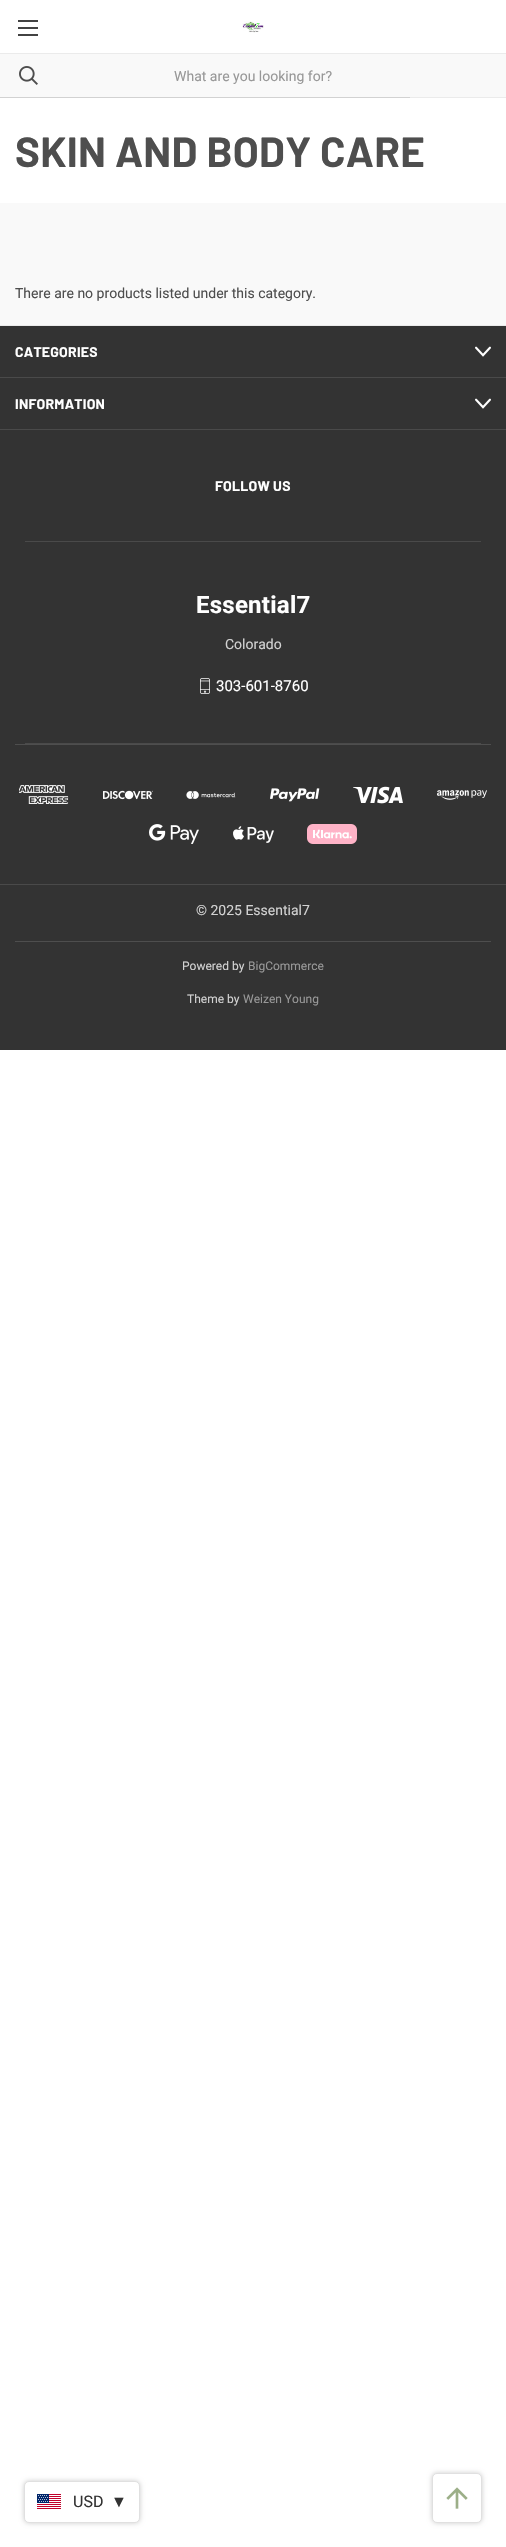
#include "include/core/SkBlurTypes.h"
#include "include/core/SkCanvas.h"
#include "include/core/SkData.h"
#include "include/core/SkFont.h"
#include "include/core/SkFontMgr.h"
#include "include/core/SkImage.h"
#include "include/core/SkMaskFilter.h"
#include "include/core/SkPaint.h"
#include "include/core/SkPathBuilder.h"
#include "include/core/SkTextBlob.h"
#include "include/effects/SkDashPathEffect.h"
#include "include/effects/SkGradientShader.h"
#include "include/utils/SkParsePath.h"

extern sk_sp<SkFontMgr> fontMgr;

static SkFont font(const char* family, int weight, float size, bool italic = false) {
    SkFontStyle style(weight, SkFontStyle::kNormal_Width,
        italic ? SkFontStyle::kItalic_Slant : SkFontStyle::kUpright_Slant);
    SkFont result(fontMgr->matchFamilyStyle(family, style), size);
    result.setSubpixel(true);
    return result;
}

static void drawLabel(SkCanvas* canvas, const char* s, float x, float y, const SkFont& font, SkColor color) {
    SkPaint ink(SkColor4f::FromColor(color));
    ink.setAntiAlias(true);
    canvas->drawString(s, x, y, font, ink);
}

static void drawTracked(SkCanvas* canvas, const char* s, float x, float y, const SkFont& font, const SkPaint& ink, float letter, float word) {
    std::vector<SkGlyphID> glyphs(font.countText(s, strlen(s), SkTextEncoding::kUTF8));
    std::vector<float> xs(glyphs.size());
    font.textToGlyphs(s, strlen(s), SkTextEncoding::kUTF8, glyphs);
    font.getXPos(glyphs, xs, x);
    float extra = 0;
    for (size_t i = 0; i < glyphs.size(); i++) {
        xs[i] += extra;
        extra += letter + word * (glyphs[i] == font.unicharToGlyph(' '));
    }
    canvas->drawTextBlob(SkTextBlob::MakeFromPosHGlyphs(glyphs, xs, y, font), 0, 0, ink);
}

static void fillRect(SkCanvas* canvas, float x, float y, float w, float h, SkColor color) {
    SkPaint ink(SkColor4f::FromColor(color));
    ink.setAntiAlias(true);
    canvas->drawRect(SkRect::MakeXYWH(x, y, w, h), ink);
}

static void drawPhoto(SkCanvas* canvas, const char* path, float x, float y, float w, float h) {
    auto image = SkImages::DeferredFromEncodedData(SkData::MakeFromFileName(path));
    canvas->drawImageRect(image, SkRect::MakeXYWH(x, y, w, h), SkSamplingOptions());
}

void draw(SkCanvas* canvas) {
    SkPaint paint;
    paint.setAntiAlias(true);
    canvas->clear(0xFFFFFFFF);
    fillRect(canvas, 410, 97, 96, 1, 0xFFEBEBEB);
    fillRect(canvas, 18, 27, 20, 2, 0xFF424242);
    fillRect(canvas, 18, 20, 20, 2, 0xFF424242);
    fillRect(canvas, 18, 34, 20, 2, 0xFF424242);
    drawPhoto(canvas, "assets/img1.png", 242, 21, 22, 12);
    fillRect(canvas, 0, 54, 506, 43, 0xFFF9F9F9);
    drawPhoto(canvas, "assets/img2.png", 19, 66, 19, 19);
    fillRect(canvas, 0, 53, 506, 1, 0xFFEBEBEB);
    SkFont font1 = font("Roboto", 400, 14);
    drawLabel(canvas, "What are you looking for?", 174, 81, font1, 0xFF989898);
    fillRect(canvas, 0, 97, 410, 1, 0xFFD2D2D2);
    SkFont font2 = font("Barlow", 700, 42);
    paint.setColor(0xFF4E4E4E);
    drawTracked(canvas, "SKIN AND BODY CARE", 15, 167, font2, paint, 0.25f, 0);
    fillRect(canvas, 0, 203, 506, 122, 0xFFF9F9F9);
    drawLabel(canvas, "There are no products listed under this category.", 15, 298, font1, 0xFF4E4E4E);
    fillRect(canvas, 0, 326, 506, 724, 0xFF333333);
    fillRect(canvas, 0, 325, 506, 1, 0xFFEBEBEB);
    fillRect(canvas, 0, 377, 506, 1, 0xFF4A4A4A);
    SkFont font3 = font("Barlow", 700, 14);
    paint.setColor(0xFFFFFFFF);
    drawTracked(canvas, "CATEGORIES", 15, 357, font3, paint, 0.25f, 0);
    drawPhoto(canvas, "assets/img3.png", 475, 346, 16, 11);
    fillRect(canvas, 0, 429, 506, 1, 0xFF4A4A4A);
    drawTracked(canvas, "INFORMATION", 15, 409, font3, paint, 0.25f, 0);
    drawPhoto(canvas, "assets/img3.png", 475, 398, 16, 11);
    fillRect(canvas, 25, 541, 456, 1, 0xFF4A4A4A);
    drawTracked(canvas, "FOLLOW US", 215, 491, font3, paint, 0.25f, 0);
    fillRect(canvas, 25, 743, 456, 1, 0xFF4A4A4A);
    SkFont font4 = font("Roboto", 700, 24);
    drawTracked(canvas, "Essential7", 196, 613, font4, paint, 0.25f, 0);
    drawLabel(canvas, "Colorado", 225, 649, font1, 0xFFD2D2D2);
    drawPhoto(canvas, "assets/img4.png", 200, 678, 10, 16);
    SkFont font5 = font("Roboto", 400, 15);
    drawLabel(canvas, "303-601-8760", 216, 691, font5, 0xFFFFFFFF);
    fillRect(canvas, 15, 744, 476, 1, 0xFF4E4E4E);
    fillRect(canvas, 0, 884, 506, 1, 0xFF4A4A4A);
    drawPhoto(canvas, "assets/img5.png", 19, 785, 50, 19);
    drawPhoto(canvas, "assets/img6.png", 103, 790, 50, 10);
    drawPhoto(canvas, "assets/img7.png", 186, 791, 50, 8);
    drawPhoto(canvas, "assets/img8.png", 270, 788, 50, 14);
    drawPhoto(canvas, "assets/img9.png", 353, 786, 50, 18);
    drawPhoto(canvas, "assets/img10.png", 437, 790, 50, 10);
    drawPhoto(canvas, "assets/img11.png", 149, 824, 50, 20);
    drawPhoto(canvas, "assets/img12.png", 233, 826, 41, 17);
    drawPhoto(canvas, "assets/img13.png", 307, 824, 50, 20);
    drawLabel(canvas, "© 2025 Essential7", 196, 915, font1, 0xFFD2D2D2);
    fillRect(canvas, 15, 941, 476, 1, 0xFF4E4E4E);
    SkFont font6 = font("Roboto", 400, 12);
    drawLabel(canvas, "Powered by", 182, 970, font6, 0xFFD2D2D2);
    drawLabel(canvas, "BigCommerce", 248, 970, font6, 0xFF989898);
    drawLabel(canvas, "Theme by", 187, 1003, font6, 0xFFD2D2D2);
    drawLabel(canvas, "Weizen Young", 243, 1003, font6, 0xFF989898);
    paint.setColor(0x33000000);
    paint.setMaskFilter(SkMaskFilter::MakeBlur(kNormal_SkBlurStyle, 2.5f));
    canvas->drawRoundRect(SkRect::MakeXYWH(24, 2481, 116, 42), 5, 5, paint);
    paint.setMaskFilter(nullptr);
    paint.setColor(0xFFFFFFFF);
    canvas->drawRoundRect(SkRect::MakeXYWH(24.5f, 2481.5f, 115, 41), 4.5f, 4.5f, paint);
    paint.setStroke(true);
    paint.setStrokeWidth(1);
    paint.setColor(0xFFE0E0E0);
    canvas->drawRoundRect(SkRect::MakeXYWH(24.5f, 2481.5f, 115, 41), 4.5f, 4.5f, paint);
    drawPhoto(canvas, "assets/img14.png", 37, 2494, 24, 15);
    SkFont font7 = font("Roboto", 400, 16);
    drawLabel(canvas, "USD", 73, 2507, font7, 0xFF333333);
    SkFont font8 = font("Liberation Sans", 400, 16, true);
    drawLabel(canvas, "▼", 111, 2507, font8, 0xFF333333);
    paint.setStroke(false);
    paint.setColor(0x33000000);
    paint.setMaskFilter(SkMaskFilter::MakeBlur(kNormal_SkBlurStyle, 2.5f));
    canvas->drawRoundRect(SkRect::MakeXYWH(432, 2473, 50, 50), 5, 5, paint);
    paint.setMaskFilter(nullptr);
    paint.setColor(0xFFFFFFFF);
    canvas->drawRoundRect(SkRect::MakeXYWH(432.5f, 2473.5f, 49, 49), 4.5f, 4.5f, paint);
    paint.setStroke(true);
    paint.setColor(0xFFE0E0E0);
    canvas->drawRoundRect(SkRect::MakeXYWH(432.5f, 2473.5f, 49, 49), 4.5f, 4.5f, paint);
    drawPhoto(canvas, "assets/img15.png", 446, 2487, 22, 22);
}
